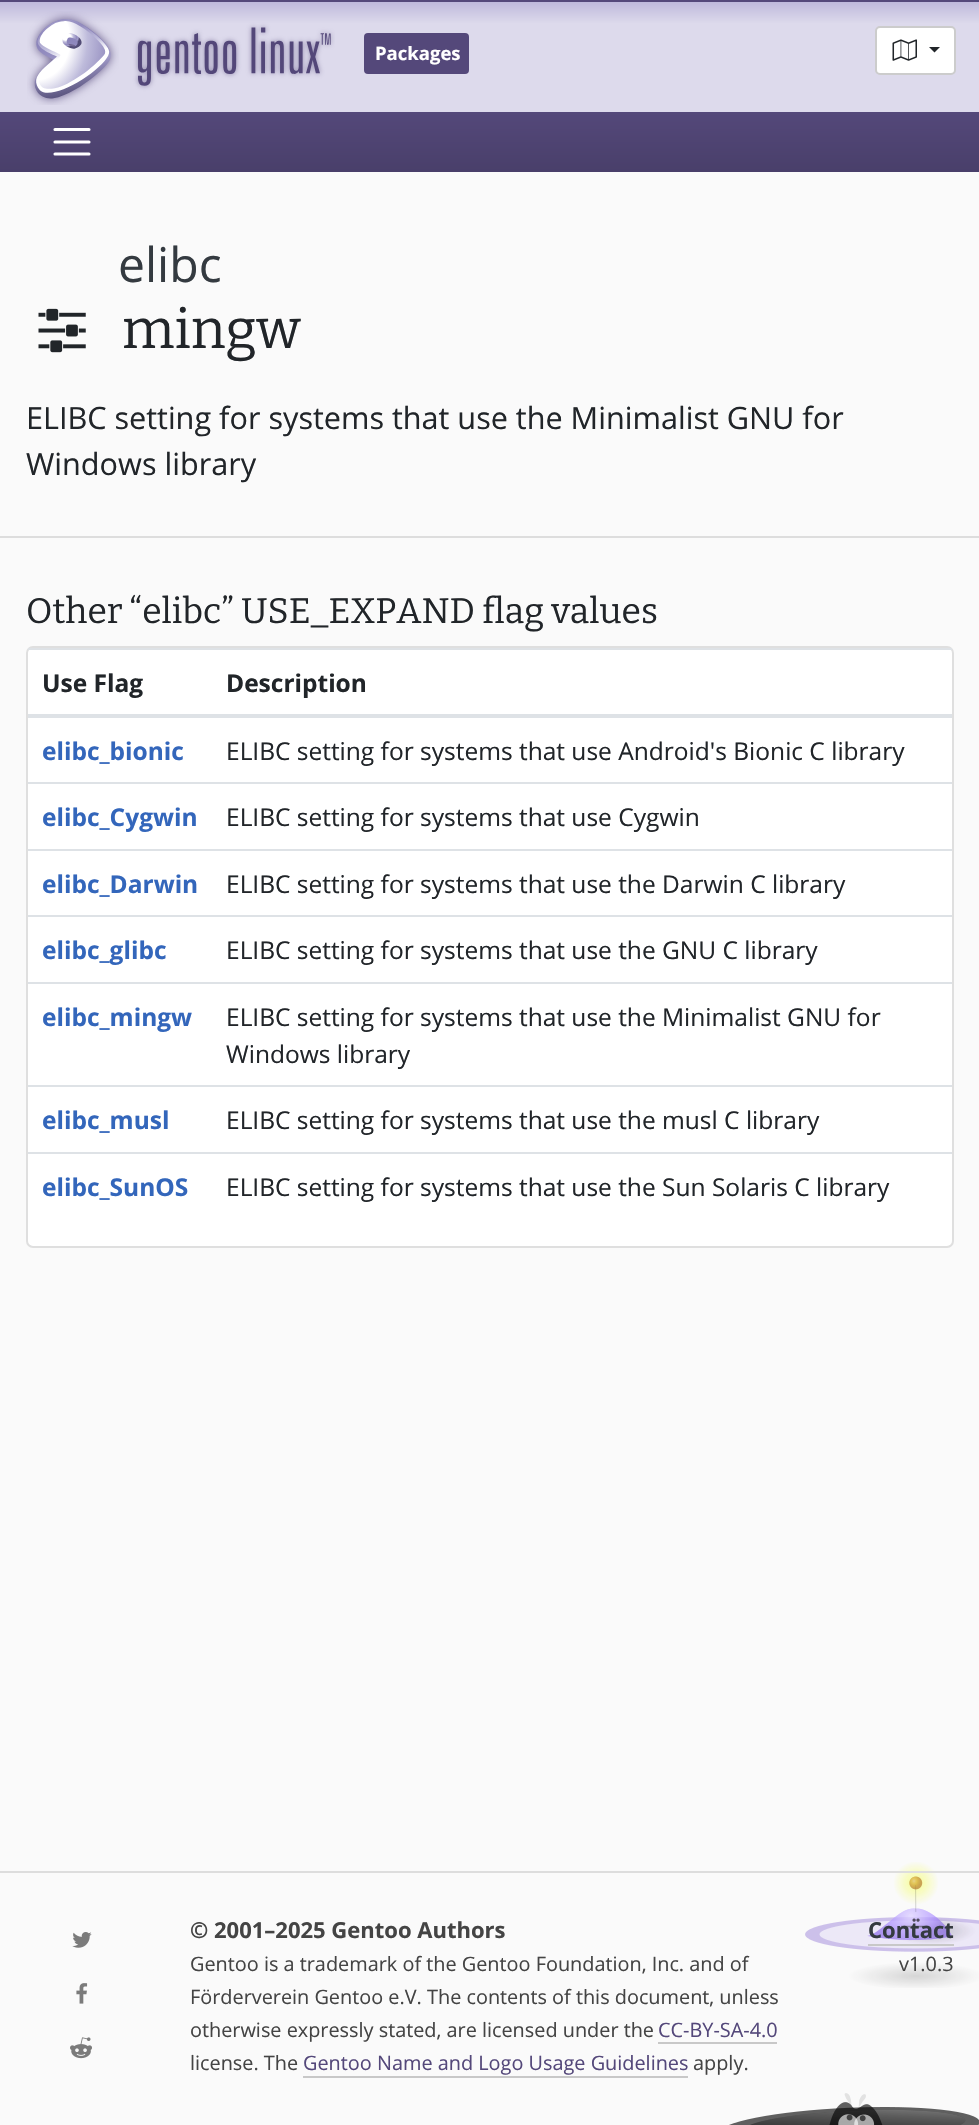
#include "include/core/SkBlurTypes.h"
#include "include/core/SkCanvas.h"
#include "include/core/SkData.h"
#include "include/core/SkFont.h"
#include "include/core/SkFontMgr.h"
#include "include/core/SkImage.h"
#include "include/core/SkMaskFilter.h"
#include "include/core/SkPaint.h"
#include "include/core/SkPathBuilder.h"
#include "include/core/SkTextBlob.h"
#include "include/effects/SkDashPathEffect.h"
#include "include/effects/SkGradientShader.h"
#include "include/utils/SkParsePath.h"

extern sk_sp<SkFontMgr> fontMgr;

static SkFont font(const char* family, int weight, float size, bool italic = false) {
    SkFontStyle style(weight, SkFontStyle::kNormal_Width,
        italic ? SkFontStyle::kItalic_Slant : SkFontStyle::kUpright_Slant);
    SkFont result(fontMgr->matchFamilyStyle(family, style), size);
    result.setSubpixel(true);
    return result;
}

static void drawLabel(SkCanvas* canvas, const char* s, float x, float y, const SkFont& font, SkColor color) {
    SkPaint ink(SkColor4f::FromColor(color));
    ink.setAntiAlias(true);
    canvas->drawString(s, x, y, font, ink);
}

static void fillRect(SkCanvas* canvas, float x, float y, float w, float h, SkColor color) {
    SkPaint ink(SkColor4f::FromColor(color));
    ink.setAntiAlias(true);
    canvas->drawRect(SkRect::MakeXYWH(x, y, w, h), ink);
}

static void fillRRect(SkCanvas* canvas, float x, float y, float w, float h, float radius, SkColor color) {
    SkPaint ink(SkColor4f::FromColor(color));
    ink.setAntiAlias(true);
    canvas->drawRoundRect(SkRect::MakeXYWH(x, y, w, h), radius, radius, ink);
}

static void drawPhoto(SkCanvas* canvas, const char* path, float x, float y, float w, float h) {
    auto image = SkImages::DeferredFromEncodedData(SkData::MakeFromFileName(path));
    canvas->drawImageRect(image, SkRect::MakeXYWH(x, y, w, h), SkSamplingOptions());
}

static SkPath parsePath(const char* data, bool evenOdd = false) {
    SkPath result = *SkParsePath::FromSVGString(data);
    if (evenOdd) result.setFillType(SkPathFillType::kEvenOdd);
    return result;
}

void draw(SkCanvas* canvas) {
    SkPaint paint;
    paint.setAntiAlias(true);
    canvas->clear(0xFFFAFAFA);
    fillRect(canvas, 0, 0, 979, 2, 0xFF54487A);
    {
        const SkColor colors[] = {0xFFBEB8DB, 0xFFDDDAEC};
        const float stops[] = {0, 0.2f};
        const SkPoint ends[] = {{490, 1.7f}, {490, 112}};
        paint.setShader(SkGradientShader::MakeLinear(ends, colors, stops, 2, SkTileMode::kClamp));
        paint.setAlpha(255);
    }
    canvas->drawRect(SkRect::MakeXYWH(0, 2, 979, 110), paint);
    drawPhoto(canvas, "assets/img1.png", 27, 11, 308, 94);
    fillRRect(canvas, 364, 33, 105, 41, 4, 0xFF54487A);
    SkFont font1 = font("Open Sans", 700, 18.5f);
    drawLabel(canvas, "Packages", 375, 60, font1, 0xFFFFFFFF);
    paint.setShader(nullptr);
    paint.setColor(0xFFFFFFFF);
    canvas->drawRoundRect(SkRect::MakeXYWH(876, 27, 79, 47), 4, 4, paint);
    paint.setStroke(true);
    paint.setStrokeWidth(2);
    paint.setColor(0xFFCCCCCC);
    canvas->drawRoundRect(SkRect::MakeXYWH(876, 27, 79, 47), 4, 4, paint);
    drawPhoto(canvas, "assets/img2.png", 892, 39, 25, 22);
    paint.setStroke(false);
    paint.setColor(0xFF212529);
    canvas->drawPath(parsePath("M929 47H940L934.5 52.5Z"), paint);
    {
        const SkColor colors[] = {0xFF54487A, 0xFF493F6A};
        const float stops[] = {0, 1};
        const SkPoint ends[] = {{490, 112}, {490, 172}};
        paint.setShader(SkGradientShader::MakeLinear(ends, colors, stops, 2, SkTileMode::kClamp));
        paint.setAlpha(255);
    }
    canvas->drawRect(SkRect::MakeXYWH(0, 112, 979, 60), paint);
    paint.setStroke(true);
    paint.setStrokeWidth(3.1f);
    paint.setStrokeCap(SkPaint::kRound_Cap);
    paint.setShader(nullptr);
    paint.setColor(0xFFFFFFFF);
    canvas->drawPath(parsePath("M55 129.5H89M55 142H89M55 154H89"), paint);
    SkFont font2 = font("Open Sans", 400, 48);
    drawLabel(canvas, "elibc", 118, 282, font2, 0xFF343A40);
    drawPhoto(canvas, "assets/img3.png", 38, 308, 48, 45);
    SkFont font3 = font("Bitter", 400, 55);
    drawLabel(canvas, "mingw", 122, 348, font3, 0xFF212529);
    SkFont font4 = font("Open Sans", 400, 30.6f);
    drawLabel(canvas, "ELIBC setting for systems that use the Minimalist GNU for", 26, 429, font4, 0xFF212529);
    drawLabel(canvas, "Windows library", 26, 475, font4, 0xFF212529);
    fillRect(canvas, 0, 536, 979, 2, 0xFFDDDDDD);
    SkFont font5 = font("Bitter", 400, 35.5f);
    drawLabel(canvas, "Other “elibc” USE_EXPAND flag values", 26, 623, font5, 0xFF212529);
    paint.setStroke(false);
    canvas->drawRoundRect(SkRect::MakeXYWH(27, 647, 926, 600), 6, 6, paint);
    paint.setStroke(true);
    paint.setStrokeWidth(2);
    paint.setStrokeCap(SkPaint::kButt_Cap);
    paint.setColor(0xFFDFDFDF);
    canvas->drawRoundRect(SkRect::MakeXYWH(27, 647, 926, 600), 6, 6, paint);
    SkFont font6 = font("Open Sans", 700, 24.5f);
    drawLabel(canvas, "Use Flag", 42, 692, font6, 0xFF212529);
    fillRect(canvas, 28, 648, 924, 2, 0xFFDEE2E6);
    fillRect(canvas, 28, 714, 924, 4, 0xFFDEE2E6);
    drawLabel(canvas, "Description", 226, 692, font6, 0xFF212529);
    drawLabel(canvas, "elibc_bionic", 42, 760, font6, 0xFF3366BB);
    SkFont font7 = font("Open Sans", 400, 24.5f);
    drawLabel(canvas, "ELIBC setting for systems that use Android's Bionic C library", 226, 760, font7, 0xFF212529);
    drawLabel(canvas, "elibc_Cygwin", 42, 826, font6, 0xFF3366BB);
    fillRect(canvas, 28, 782, 924, 2, 0xFFDEE2E6);
    drawLabel(canvas, "ELIBC setting for systems that use Cygwin", 226, 826, font7, 0xFF212529);
    drawLabel(canvas, "elibc_Darwin", 42, 893, font6, 0xFF3366BB);
    fillRect(canvas, 28, 849, 924, 2, 0xFFDEE2E6);
    drawLabel(canvas, "ELIBC setting for systems that use the Darwin C library", 226, 893, font7, 0xFF212529);
    drawLabel(canvas, "elibc_glibc", 42, 959, font6, 0xFF3366BB);
    fillRect(canvas, 28, 915, 924, 2, 0xFFDEE2E6);
    drawLabel(canvas, "ELIBC setting for systems that use the GNU C library", 226, 959, font7, 0xFF212529);
    drawLabel(canvas, "elibc_mingw", 42, 1026, font6, 0xFF3366BB);
    fillRect(canvas, 28, 982, 924, 2, 0xFFDEE2E6);
    drawLabel(canvas, "ELIBC setting for systems that use the Minimalist GNU for", 226, 1026, font7, 0xFF212529);
    drawLabel(canvas, "Windows library", 226, 1063, font7, 0xFF212529);
    drawLabel(canvas, "elibc_musl", 42, 1129, font6, 0xFF3366BB);
    fillRect(canvas, 28, 1085, 924, 2, 0xFFDEE2E6);
    drawLabel(canvas, "ELIBC setting for systems that use the musl C library", 226, 1129, font7, 0xFF212529);
    drawLabel(canvas, "elibc_SunOS", 42, 1196, font6, 0xFF3366BB);
    fillRect(canvas, 28, 1152, 924, 2, 0xFFDEE2E6);
    drawLabel(canvas, "ELIBC setting for systems that use the Sun Solaris C library", 226, 1196, font7, 0xFF212529);
    drawPhoto(canvas, "assets/img4.png", 805, 1862, 174, 126);
    drawPhoto(canvas, "assets/img5.png", 729, 2093, 250, 32);
    fillRect(canvas, 0, 1871, 979, 2, 0xFFDDDDDD);
    drawPhoto(canvas, "assets/img6.png", 72, 1932, 20, 16);
    drawPhoto(canvas, "assets/img7.png", 76, 1983, 12, 21);
    drawPhoto(canvas, "assets/img8.png", 70, 2037, 22, 22);
    SkFont font8 = font("Open Sans", 700, 22);
    drawLabel(canvas, "© 2001–2025 Gentoo Authors", 190, 1938, font8, 0xFF444444);
    SkFont font9 = font("Open Sans", 400, 19.85f);
    drawLabel(canvas, "Gentoo is a trademark of the Gentoo Foundation, Inc. and of", 190, 1971, font9, 0xFF444444);
    drawLabel(canvas, "Förderverein Gentoo e.V. The contents of this document, unless", 190, 2004, font9, 0xFF444444);
    drawLabel(canvas, "otherwise expressly stated, are licensed under the", 190, 2037, font9, 0xFF444444);
    drawLabel(canvas, "CC-BY-SA-4.0", 658, 2037, font9, 0xFF54487A);
    fillRect(canvas, 658, 2042, 119, 2, 0xFFC8C8C8);
    drawLabel(canvas, "license. The", 190, 2070, font9, 0xFF444444);
    drawLabel(canvas, "Gentoo Name and Logo Usage Guidelines", 303, 2070, font9, 0xFF54487A);
    fillRect(canvas, 303, 2076, 385, 2, 0xFFC8C8C8);
    drawLabel(canvas, "apply.", 693, 2070, font9, 0xFF444444);
    drawLabel(canvas, "Contact", 868, 1938, font8, 0xFF343A40);
    fillRect(canvas, 868, 1944, 86, 2, 0xFFC8C8C8);
    drawLabel(canvas, "v1.0.3", 899, 1971, font9, 0xFF444444);
}
